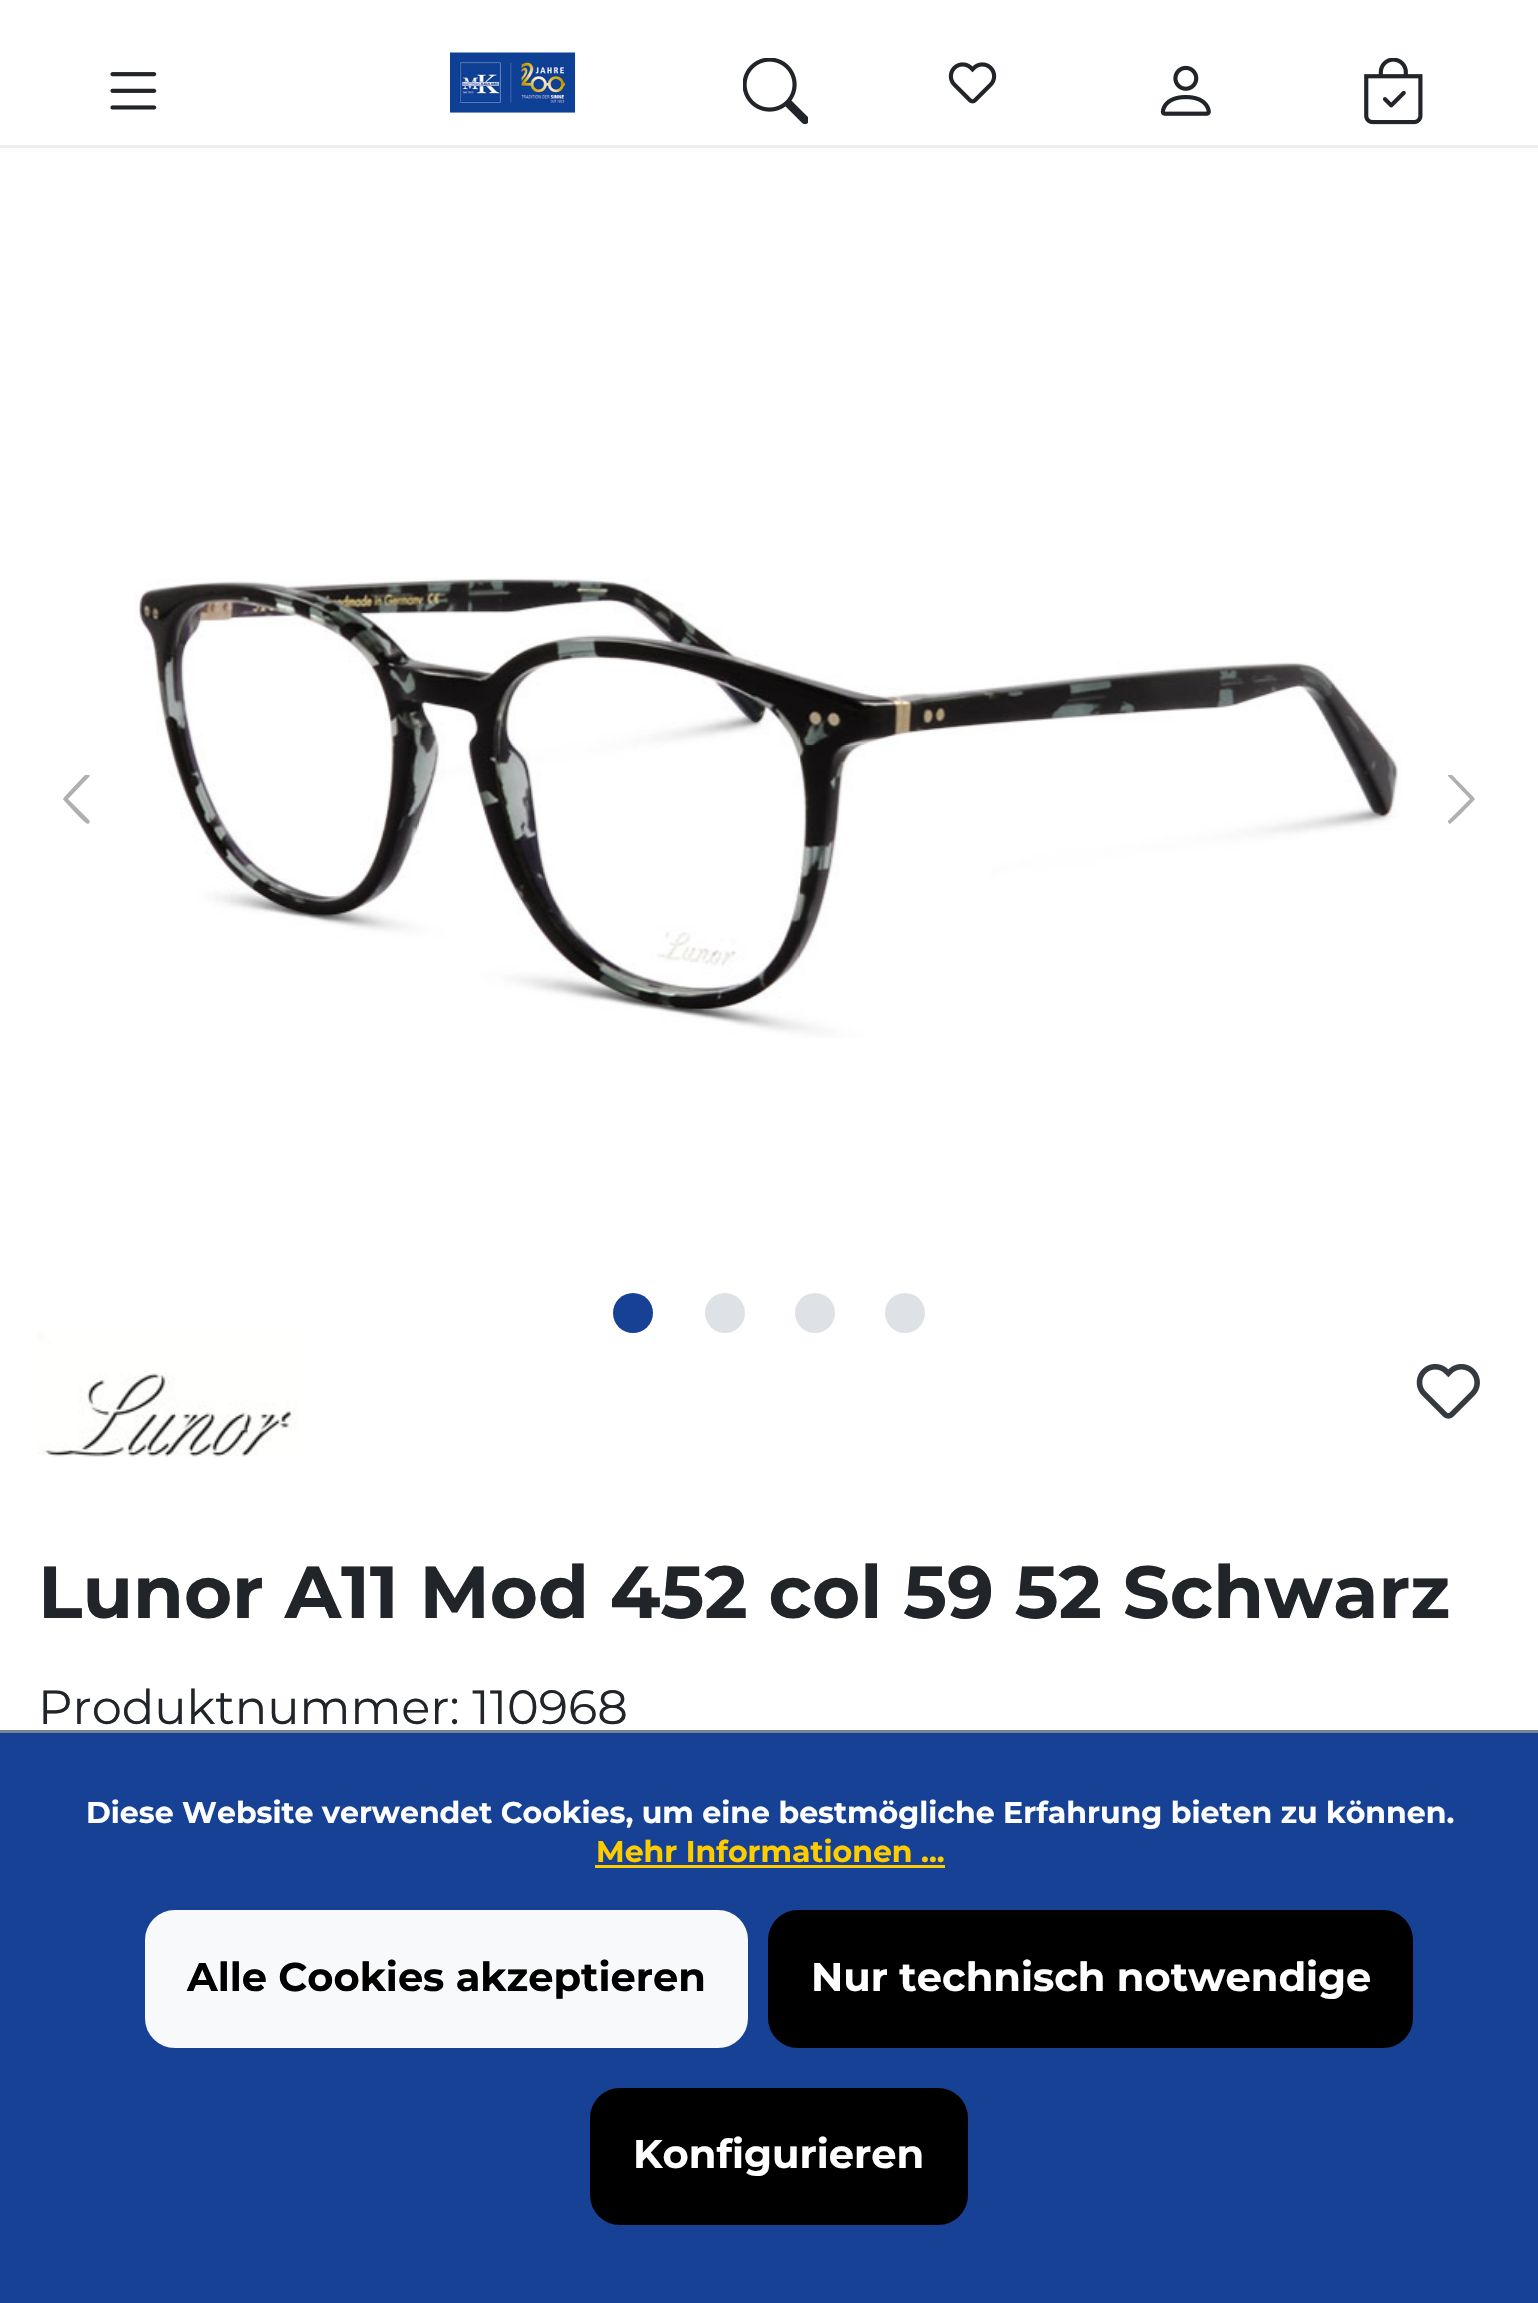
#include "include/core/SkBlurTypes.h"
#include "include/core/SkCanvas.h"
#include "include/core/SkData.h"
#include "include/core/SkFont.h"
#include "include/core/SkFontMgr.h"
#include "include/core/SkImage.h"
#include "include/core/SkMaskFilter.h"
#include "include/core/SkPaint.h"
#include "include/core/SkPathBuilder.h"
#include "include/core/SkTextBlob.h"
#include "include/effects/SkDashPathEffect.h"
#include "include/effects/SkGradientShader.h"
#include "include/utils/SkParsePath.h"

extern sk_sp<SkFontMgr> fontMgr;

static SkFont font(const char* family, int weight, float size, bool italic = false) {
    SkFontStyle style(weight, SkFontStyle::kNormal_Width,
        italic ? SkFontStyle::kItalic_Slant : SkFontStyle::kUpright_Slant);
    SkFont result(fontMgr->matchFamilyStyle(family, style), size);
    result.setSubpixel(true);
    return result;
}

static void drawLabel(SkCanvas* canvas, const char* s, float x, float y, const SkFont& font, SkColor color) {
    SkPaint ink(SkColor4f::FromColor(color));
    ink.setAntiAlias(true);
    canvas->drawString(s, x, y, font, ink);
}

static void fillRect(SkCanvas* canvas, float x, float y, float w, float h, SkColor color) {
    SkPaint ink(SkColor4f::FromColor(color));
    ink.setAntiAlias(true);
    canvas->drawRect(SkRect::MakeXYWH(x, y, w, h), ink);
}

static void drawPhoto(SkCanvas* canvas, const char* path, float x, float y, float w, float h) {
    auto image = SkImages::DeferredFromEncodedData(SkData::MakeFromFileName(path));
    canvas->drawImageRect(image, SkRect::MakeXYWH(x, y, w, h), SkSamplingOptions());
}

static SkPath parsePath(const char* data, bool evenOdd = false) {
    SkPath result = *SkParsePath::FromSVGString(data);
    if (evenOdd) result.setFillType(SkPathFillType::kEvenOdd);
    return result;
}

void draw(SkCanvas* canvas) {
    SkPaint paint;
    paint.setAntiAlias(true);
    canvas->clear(0xFFFFFFFF);
    fillRect(canvas, 0, 145, 1538, 3, 0xFFEFEFEF);
    drawPhoto(canvas, "assets/img1.png", 110, 72, 47, 38);
    drawPhoto(canvas, "assets/img2.png", 450, 52, 126, 61);
    drawPhoto(canvas, "assets/img3.png", 743, 58, 65, 67);
    drawPhoto(canvas, "assets/img4.png", 948, 62, 49, 42);
    drawPhoto(canvas, "assets/img5.png", 1160, 65, 51, 51);
    drawPhoto(canvas, "assets/img6.png", 1364, 58, 59, 67);
    drawPhoto(canvas, "assets/img7.png", 134, 578, 1268, 460);
    canvas->save();
    canvas->clipRect(SkRect::MakeXYWH(50, 775, 50, 50));
    paint.setColor(0xFFB0B0B0);
    canvas->drawPath(parsePath("M68 799L89 820C90 821 90 823 88 824L86 823C84 822 63 800 63 799C63 798 84 776 86 774H88C90 774 90 776 89 777Z", true), paint);
    canvas->restore();
    canvas->save();
    canvas->clipRect(SkRect::MakeXYWH(1438, 775, 50, 50));
    canvas->drawPath(parsePath("M1470 799L1449 820C1447 821 1448 823 1450 824L1451 823C1453 822 1475 800 1475 799C1475 798 1453 776 1451 774H1450C1448 774 1447 776 1449 777Z", true), paint);
    canvas->restore();
    paint.setColor(0xFF164194);
    canvas->drawCircle(633, 1313, 20, paint);
    paint.setColor(0xFFDEE2E6);
    canvas->drawCircle(725, 1313, 20, paint);
    canvas->drawCircle(815, 1313, 20, paint);
    canvas->drawCircle(905, 1313, 20, paint);
    drawPhoto(canvas, "assets/img8.png", 37, 1333, 262, 124);
    drawPhoto(canvas, "assets/img9.png", 1416, 1364, 64, 55);
    SkFont font1 = font("Montserrat", 100, 73.6f);
    drawLabel(canvas, "Lunor A11 Mod 452 col 59 52 Schwarz", 38, 1618, font1, 0xFF212529);
    SkFont font2 = font("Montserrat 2", 100, 48);
    drawLabel(canvas, "Produktnummer: 110968", 38, 1724, font2, 0xFF212529);
    fillRect(canvas, 0, 1733, 1538, 570, 0xFF164194);
    fillRect(canvas, 0, 1730, 1538, 3, 0xFF798490);
    SkFont font3 = font("Montserrat", 100, 30);
    drawLabel(canvas, "Diese Website verwendet Cookies, um eine bestmögliche Erfahrung bieten zu können.", 86, 1823, font3, 0xFFFFFFFF);
    drawLabel(canvas, "Mehr Informationen ...", 596, 1862, font3, 0xFFFFCC00);
    fillRect(canvas, 595, 1865, 350, 3, 0xFFFFCC00);
    paint.setColor(0xFFF8F9FA);
    canvas->drawRoundRect(SkRect::MakeXYWH(146.5f, 1911.5f, 600, 135), 28.5f, 28.5f, paint);
    paint.setStroke(true);
    paint.setStrokeWidth(3);
    canvas->drawRoundRect(SkRect::MakeXYWH(146.5f, 1911.5f, 600, 135), 28.5f, 28.5f, paint);
    SkFont font4 = font("Montserrat", 100, 40);
    drawLabel(canvas, "Alle Cookies akzeptieren", 187, 1991, font4, 0xFF000000);
    paint.setStroke(false);
    paint.setColor(0xFF000000);
    canvas->drawRoundRect(SkRect::MakeXYWH(769.5f, 1911.5f, 642, 135), 28.5f, 28.5f, paint);
    paint.setStroke(true);
    canvas->drawRoundRect(SkRect::MakeXYWH(769.5f, 1911.5f, 642, 135), 28.5f, 28.5f, paint);
    drawLabel(canvas, "Nur technisch notwendige", 811, 1991, font4, 0xFFFFFFFF);
    paint.setStroke(false);
    canvas->drawRoundRect(SkRect::MakeXYWH(591.5f, 2089.5f, 375, 134), 28.5f, 28.5f, paint);
    paint.setStroke(true);
    canvas->drawRoundRect(SkRect::MakeXYWH(591.5f, 2089.5f, 375, 134), 28.5f, 28.5f, paint);
    drawLabel(canvas, "Konfigurieren", 633, 2168, font4, 0xFFFFFFFF);
}
